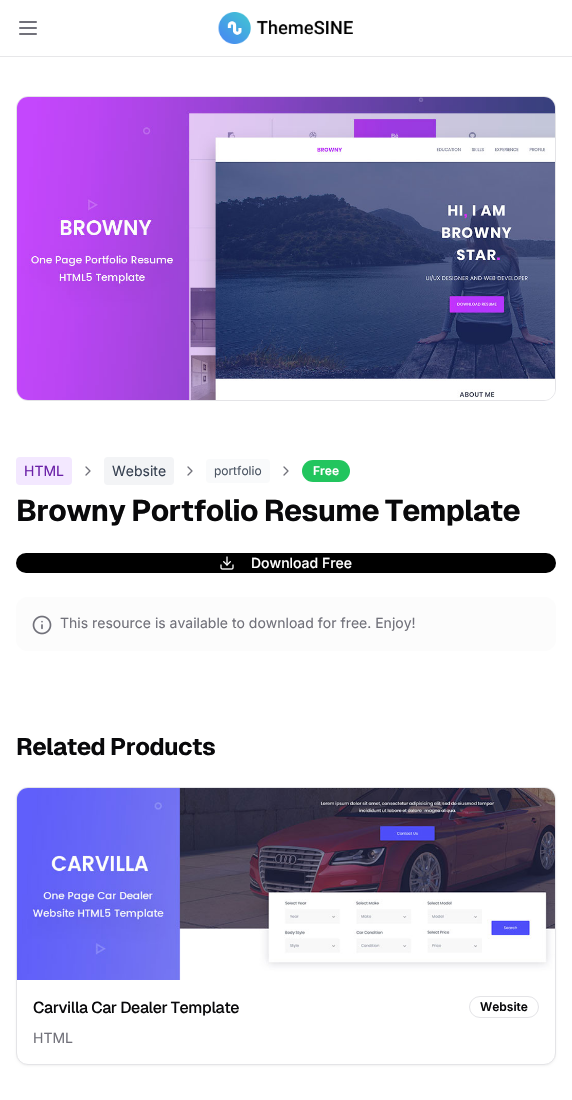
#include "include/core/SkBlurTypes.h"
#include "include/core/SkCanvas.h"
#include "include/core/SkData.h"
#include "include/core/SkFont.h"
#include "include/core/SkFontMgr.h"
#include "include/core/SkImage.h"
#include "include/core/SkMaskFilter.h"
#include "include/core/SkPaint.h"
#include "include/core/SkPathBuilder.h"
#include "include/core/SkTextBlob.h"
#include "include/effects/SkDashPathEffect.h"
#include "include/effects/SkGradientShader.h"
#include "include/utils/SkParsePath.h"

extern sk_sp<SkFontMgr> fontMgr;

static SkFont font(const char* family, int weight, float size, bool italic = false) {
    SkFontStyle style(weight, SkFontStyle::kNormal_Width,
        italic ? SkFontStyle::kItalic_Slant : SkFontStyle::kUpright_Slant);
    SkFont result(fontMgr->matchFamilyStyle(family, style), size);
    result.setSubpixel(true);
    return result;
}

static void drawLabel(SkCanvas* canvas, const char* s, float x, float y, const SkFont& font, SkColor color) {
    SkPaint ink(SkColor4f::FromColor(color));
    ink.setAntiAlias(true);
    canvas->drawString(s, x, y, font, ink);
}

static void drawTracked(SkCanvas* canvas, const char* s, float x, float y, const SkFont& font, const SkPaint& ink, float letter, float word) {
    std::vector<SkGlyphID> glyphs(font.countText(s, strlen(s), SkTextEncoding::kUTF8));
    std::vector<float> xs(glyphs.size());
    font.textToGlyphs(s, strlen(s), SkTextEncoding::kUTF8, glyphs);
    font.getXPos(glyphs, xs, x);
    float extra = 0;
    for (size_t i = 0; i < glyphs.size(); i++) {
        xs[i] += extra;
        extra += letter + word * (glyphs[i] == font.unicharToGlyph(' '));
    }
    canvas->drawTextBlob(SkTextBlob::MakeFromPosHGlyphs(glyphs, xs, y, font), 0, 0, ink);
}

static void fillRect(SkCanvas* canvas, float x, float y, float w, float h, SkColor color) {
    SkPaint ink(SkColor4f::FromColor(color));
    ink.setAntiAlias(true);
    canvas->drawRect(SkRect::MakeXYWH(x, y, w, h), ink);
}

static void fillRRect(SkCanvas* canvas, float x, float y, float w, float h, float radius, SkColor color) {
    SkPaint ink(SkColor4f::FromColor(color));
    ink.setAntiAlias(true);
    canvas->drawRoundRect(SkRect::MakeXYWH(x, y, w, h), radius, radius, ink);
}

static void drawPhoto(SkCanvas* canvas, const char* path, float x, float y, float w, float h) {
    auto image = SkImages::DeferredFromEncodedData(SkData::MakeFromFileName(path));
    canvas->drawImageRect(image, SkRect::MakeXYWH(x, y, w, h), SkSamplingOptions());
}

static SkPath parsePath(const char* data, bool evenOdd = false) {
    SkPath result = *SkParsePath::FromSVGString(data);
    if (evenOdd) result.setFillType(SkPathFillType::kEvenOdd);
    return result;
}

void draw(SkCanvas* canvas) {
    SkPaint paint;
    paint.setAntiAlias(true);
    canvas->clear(0xFFFFFFFF);
    fillRect(canvas, 0, 56, 572, 1, 0xFFE7E7E9);
    drawPhoto(canvas, "assets/img1.png", 19, 21, 18, 14);
    drawPhoto(canvas, "assets/img2.png", 218, 12, 135, 32);
    paint.setStroke(true);
    paint.setStrokeWidth(1);
    paint.setColor(0xFFE4E4E7);
    canvas->drawRoundRect(SkRect::MakeXYWH(16.5f, 96.5f, 539, 304), 11.5f, 11.5f, paint);
    drawPhoto(canvas, "assets/img3.png", 17, 97, 538, 303);
    fillRRect(canvas, 16, 457, 56, 28, 4, 0xFFF3E8FF);
    SkFont font1 = font("Inter", 400, 14);
    drawLabel(canvas, "HTML", 24, 476, font1, 0xFF6B21A8);
    paint.setStrokeWidth(1.3f);
    paint.setStrokeCap(SkPaint::kRound_Cap);
    paint.setStrokeJoin(SkPaint::kRound_Join);
    paint.setColor(0xFF71717A);
    canvas->drawPath(parsePath("M86 475L90 471L86 467"), paint);
    fillRRect(canvas, 104, 457, 70, 28, 4, 0xFFF3F4F6);
    drawLabel(canvas, "Website", 112, 476, font1, 0xFF374151);
    canvas->drawPath(parsePath("M188 475L192 471L188 467"), paint);
    fillRRect(canvas, 206, 459, 64, 24, 4, 0xFFF9FAFB);
    SkFont font2 = font("Inter", 400, 12);
    drawLabel(canvas, "portfolio", 214, 475, font2, 0xFF4B5563);
    canvas->drawPath(parsePath("M284 475L288 471L284 467"), paint);
    fillRRect(canvas, 302, 460, 48, 22, 11, 0xFF22C55E);
    SkFont font3 = font("Inter", 600, 12);
    drawLabel(canvas, "Free", 313, 475, font3, 0xFFFFFFFF);
    SkFont font4 = font("Geist", 700, 30);
    paint.setStroke(false);
    paint.setColor(0xFF09090B);
    drawTracked(canvas, "Browny Portfolio Resume Template", 16, 521, font4, paint, -0.75f, 0);
    fillRRect(canvas, 16, 553, 540, 20, 10, 0xFF000000);
    drawPhoto(canvas, "assets/img4.png", 220, 556, 14, 14);
    SkFont font5 = font("Inter", 500, 14);
    drawLabel(canvas, "Download Free", 251, 568, font5, 0xFFFFFFFF);
    fillRRect(canvas, 16, 597, 540, 54, 12, 0xFFFCFCFC);
    drawPhoto(canvas, "assets/img5.png", 32, 615, 20, 20);
    drawLabel(canvas, "This resource is available to download for free. Enjoy!", 60, 628, font1, 0xFF71717A);
    SkFont font6 = font("Geist", 700, 24);
    drawTracked(canvas, "Related Products", 16, 755, font6, paint, -0.6f, 0);
    paint.setColor(0x0D000000);
    paint.setMaskFilter(SkMaskFilter::MakeBlur(kNormal_SkBlurStyle, 1));
    canvas->drawRoundRect(SkRect::MakeXYWH(16, 788, 540, 278), 12, 12, paint);
    paint.setMaskFilter(nullptr);
    paint.setColor(0xFFFFFFFF);
    canvas->drawRoundRect(SkRect::MakeXYWH(16.5f, 787.5f, 539, 277), 11.5f, 11.5f, paint);
    paint.setStroke(true);
    paint.setStrokeWidth(1);
    paint.setStrokeCap(SkPaint::kButt_Cap);
    paint.setStrokeJoin(SkPaint::kMiter_Join);
    paint.setColor(0xFFE4E4E7);
    canvas->drawRoundRect(SkRect::MakeXYWH(16.5f, 787.5f, 539, 277), 11.5f, 11.5f, paint);
    drawPhoto(canvas, "assets/img6.png", 17, 788, 538, 192);
    SkFont font7 = font("Geist", 500, 16);
    paint.setStroke(false);
    paint.setColor(0xFF09090B);
    drawTracked(canvas, "Carvilla Car Dealer Template", 33, 1013, font7, paint, -0.4f, 0);
    paint.setStroke(true);
    paint.setColor(0xFFE4E4E7);
    canvas->drawRoundRect(SkRect::MakeXYWH(469.5f, 996.5f, 69, 21), 10.5f, 10.5f, paint);
    drawLabel(canvas, "Website", 480, 1011, font3, 0xFF09090B);
    drawLabel(canvas, "HTML", 33, 1043, font1, 0xFF71717A);
}
